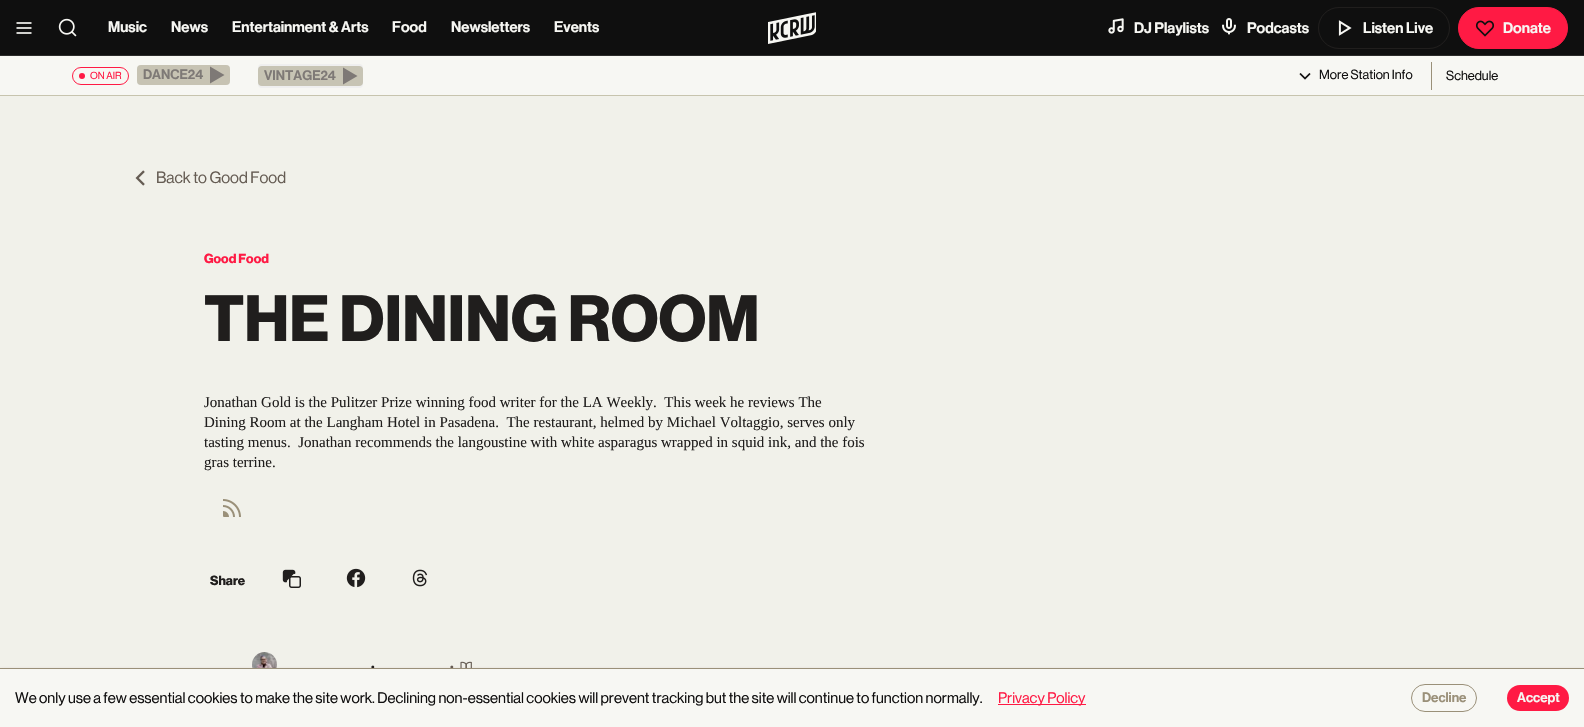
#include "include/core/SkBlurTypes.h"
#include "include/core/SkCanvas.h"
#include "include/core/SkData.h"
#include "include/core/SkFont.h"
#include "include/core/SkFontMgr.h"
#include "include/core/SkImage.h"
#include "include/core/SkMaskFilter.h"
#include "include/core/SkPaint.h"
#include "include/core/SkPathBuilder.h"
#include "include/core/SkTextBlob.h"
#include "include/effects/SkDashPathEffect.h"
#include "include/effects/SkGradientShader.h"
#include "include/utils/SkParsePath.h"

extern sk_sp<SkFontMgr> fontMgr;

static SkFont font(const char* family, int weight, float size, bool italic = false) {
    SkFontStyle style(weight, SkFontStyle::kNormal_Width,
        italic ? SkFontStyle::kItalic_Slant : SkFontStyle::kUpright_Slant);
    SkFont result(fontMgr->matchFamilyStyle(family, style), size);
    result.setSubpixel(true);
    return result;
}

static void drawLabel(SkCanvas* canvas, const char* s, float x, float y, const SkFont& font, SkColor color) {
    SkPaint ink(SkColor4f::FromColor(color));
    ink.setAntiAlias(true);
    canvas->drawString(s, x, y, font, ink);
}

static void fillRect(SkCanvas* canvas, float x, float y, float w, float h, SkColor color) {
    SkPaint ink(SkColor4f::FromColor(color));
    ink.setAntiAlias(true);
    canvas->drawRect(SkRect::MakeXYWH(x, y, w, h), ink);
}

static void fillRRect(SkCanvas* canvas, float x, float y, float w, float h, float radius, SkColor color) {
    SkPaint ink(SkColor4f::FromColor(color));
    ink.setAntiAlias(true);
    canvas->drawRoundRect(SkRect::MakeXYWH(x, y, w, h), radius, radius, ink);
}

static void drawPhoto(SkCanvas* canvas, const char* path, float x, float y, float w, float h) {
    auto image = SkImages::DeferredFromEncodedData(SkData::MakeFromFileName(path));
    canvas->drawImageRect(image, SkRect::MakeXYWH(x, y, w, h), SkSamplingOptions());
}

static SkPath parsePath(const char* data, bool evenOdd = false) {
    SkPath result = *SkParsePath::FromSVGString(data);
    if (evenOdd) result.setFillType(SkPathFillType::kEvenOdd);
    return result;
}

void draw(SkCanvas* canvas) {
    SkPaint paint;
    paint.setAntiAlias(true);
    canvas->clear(0xFFF1F1EA);
    fillRect(canvas, 0, 0, 1584, 55, 0xFF0F0F0F);
    fillRect(canvas, 0, 55, 1584, 1, 0xFF2B2B2A);
    drawPhoto(canvas, "assets/img1.png", 16, 22, 16, 12);
    drawPhoto(canvas, "assets/img2.png", 58, 18, 19, 19);
    SkFont font1 = font("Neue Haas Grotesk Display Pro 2", 500, 15);
    drawLabel(canvas, "Music", 108, 32, font1, 0xFFF7F7F3);
    drawLabel(canvas, "News", 171, 32, font1, 0xFFF7F7F3);
    drawLabel(canvas, "Entertainment & Arts", 232, 32, font1, 0xFFF7F7F3);
    drawLabel(canvas, "Food", 392, 32, font1, 0xFFF7F7F3);
    drawLabel(canvas, "Newsletters", 451, 32, font1, 0xFFF7F7F3);
    drawLabel(canvas, "Events", 554, 32, font1, 0xFFF7F7F3);
    drawPhoto(canvas, "assets/img3.png", 768, 12, 48, 32);
    drawPhoto(canvas, "assets/img4.png", 1108, 18, 16, 16);
    drawLabel(canvas, "DJ Playlists", 1134, 33, font1, 0xFFF7F7F3);
    drawPhoto(canvas, "assets/img5.png", 1222, 18, 14, 17);
    drawLabel(canvas, "Podcasts", 1247, 33, font1, 0xFFF7F7F3);
    paint.setStroke(true);
    paint.setStrokeWidth(1);
    paint.setColor(0xFF201E1D);
    canvas->drawRoundRect(SkRect::MakeXYWH(1318.5f, 7.5f, 131, 41), 20.5f, 20.5f, paint);
    drawPhoto(canvas, "assets/img6.png", 1338, 20, 14, 16);
    drawLabel(canvas, "Listen Live", 1363, 33, font1, 0xFFF7F7F3);
    paint.setStroke(false);
    paint.setColor(0xFFFF1A44);
    canvas->drawRoundRect(SkRect::MakeXYWH(1458.5f, 7.5f, 109, 41), 20.5f, 20.5f, paint);
    paint.setStroke(true);
    canvas->drawRoundRect(SkRect::MakeXYWH(1458.5f, 7.5f, 109, 41), 20.5f, 20.5f, paint);
    drawPhoto(canvas, "assets/img7.png", 1475, 20, 20, 17);
    drawLabel(canvas, "Donate", 1503, 33, font1, 0xFFF7F7F3);
    fillRect(canvas, 0, 56, 1584, 39, 0xFFF7F7F3);
    fillRect(canvas, 0, 95, 1584, 1, 0xFFC7C4AE);
    canvas->drawRoundRect(SkRect::MakeXYWH(72.5f, 67.5f, 56, 17), 8.5f, 8.5f, paint);
    paint.setStroke(false);
    canvas->drawCircle(82, 76, 3, paint);
    SkFont font2 = font("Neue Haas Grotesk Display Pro", 500, 10);
    drawLabel(canvas, "ON AIR", 90, 79, font2, 0xFFFF1A44);
    fillRRect(canvas, 137, 65, 93, 20, 4, 0xFFEFEFEF);
    fillRRect(canvas, 137, 65, 93, 20, 4, 0xB3B6B19A);
    SkFont font3 = font("Neue Haas Grotesk Display Pro 2", 500, 13.5f);
    drawLabel(canvas, "DANCE24", 143, 79, font3, 0xFF7E7976);
    paint.setColor(0xFF7E7976);
    canvas->drawPath(parsePath("M210 66.5V83.5L224.5 75Z"), paint);
    fillRRect(canvas, 258, 64, 105, 24, 4, 0xFFEFEFEF);
    fillRRect(canvas, 258, 66, 105, 20, 4, 0xFFC7C4B4);
    drawLabel(canvas, "VINTAGE24", 264, 80, font3, 0xFF7E7976);
    canvas->drawPath(parsePath("M343 67.5V84.5L357.5 76Z"), paint);
    drawPhoto(canvas, "assets/img8.png", 1299, 73, 12, 7);
    SkFont font4 = font("Neue Haas Grotesk Display Pro", 500, 13);
    drawLabel(canvas, "More Station Info", 1319, 79, font4, 0xFF100F0F);
    fillRect(canvas, 1431, 62, 1, 28, 0xFF9A9079);
    drawLabel(canvas, "Schedule", 1446, 80, font4, 0xFF100F0F);
    drawPhoto(canvas, "assets/img9.png", 135, 170, 10, 16);
    SkFont font5 = font("Neue Haas Grotesk Display Pro", 500, 16);
    drawLabel(canvas, "Back to Good Food", 156, 183, font5, 0xFF655C53);
    SkFont font6 = font("Neue Haas Grotesk Display Pro", 700, 13);
    drawLabel(canvas, "Good Food", 204, 263, font6, 0xFFFF1A44);
    SkFont font7 = font("Neue Haas Grotesk Display Pro", 700, 64);
    drawLabel(canvas, "THE DINING ROOM", 204, 341, font7, 0xFF201E1D);
    SkFont font8 = font("Liberation Serif", 400, 15);
    drawLabel(canvas, "Jonathan Gold is the Pulitzer Prize winning food writer for the LA Weekly.  This week he reviews The", 204, 407, font8, 0xFF201E1D);
    drawLabel(canvas, "Dining Room at the Langham Hotel in Pasadena.  The restaurant, helmed by Michael Voltaggio, serves only", 204, 427, font8, 0xFF201E1D);
    drawLabel(canvas, "tasting menus.  Jonathan recommends the langoustine with white asparagus wrapped in squid ink, and the fois", 204, 447, font8, 0xFF201E1D);
    drawLabel(canvas, "gras terrine.", 204, 467, font8, 0xFF201E1D);
    drawPhoto(canvas, "assets/img10.png", 223, 499, 18, 18);
    drawLabel(canvas, "Share", 210, 585, font6, 0xFF201E1D);
    drawPhoto(canvas, "assets/img11.png", 282, 569, 19, 19);
    drawPhoto(canvas, "assets/img12.png", 346, 568, 20, 20);
    drawPhoto(canvas, "assets/img13.png", 412, 569, 16, 18);
    drawPhoto(canvas, "assets/img14.png", 252, 652, 25, 16);
    SkFont font9 = font("Neue Haas Grotesk Display Pro", 500, 12);
    drawLabel(canvas, "•", 371, 671, font9, 0xFF201E1D);
    drawLabel(canvas, "•", 450, 671, font9, 0xFF655C53);
    drawPhoto(canvas, "assets/img15.png", 460, 661, 12, 7);
    paint.setColor(0x40670511);
    paint.setMaskFilter(SkMaskFilter::MakeBlur(kNormal_SkBlurStyle, 2));
    canvas->drawRect(SkRect::MakeXYWH(0, 670, 1584, 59), paint);
    paint.setMaskFilter(nullptr);
    fillRect(canvas, 0, 669, 1584, 58, 0xFFF7F7F3);
    fillRect(canvas, 0, 668, 1584, 1, 0xFF9A9079);
    SkFont font10 = font("Neue Haas Grotesk Display Pro", 500, 15);
    drawLabel(canvas, "We only use a few essential cookies to make the site work. Declining non-essential cookies will prevent tracking but the site will continue to function normally.", 15, 703, font10, 0xFF100F0F);
    fillRect(canvas, 998, 704, 88, 1, 0xFFFF1A44);
    drawLabel(canvas, "Privacy Policy", 998, 703, font10, 0xFFFF1A44);
    paint.setStroke(true);
    paint.setColor(0xFF9A9079);
    canvas->drawRoundRect(SkRect::MakeXYWH(1411.5f, 684.5f, 65, 27), 13.5f, 13.5f, paint);
    drawLabel(canvas, "Decline", 1422, 702, font3, 0xFF9A9079);
    fillRRect(canvas, 1507, 685, 62, 26, 13, 0xFFFF1A44);
    drawLabel(canvas, "Accept", 1517, 702, font3, 0xFFF7F7F3);
}
